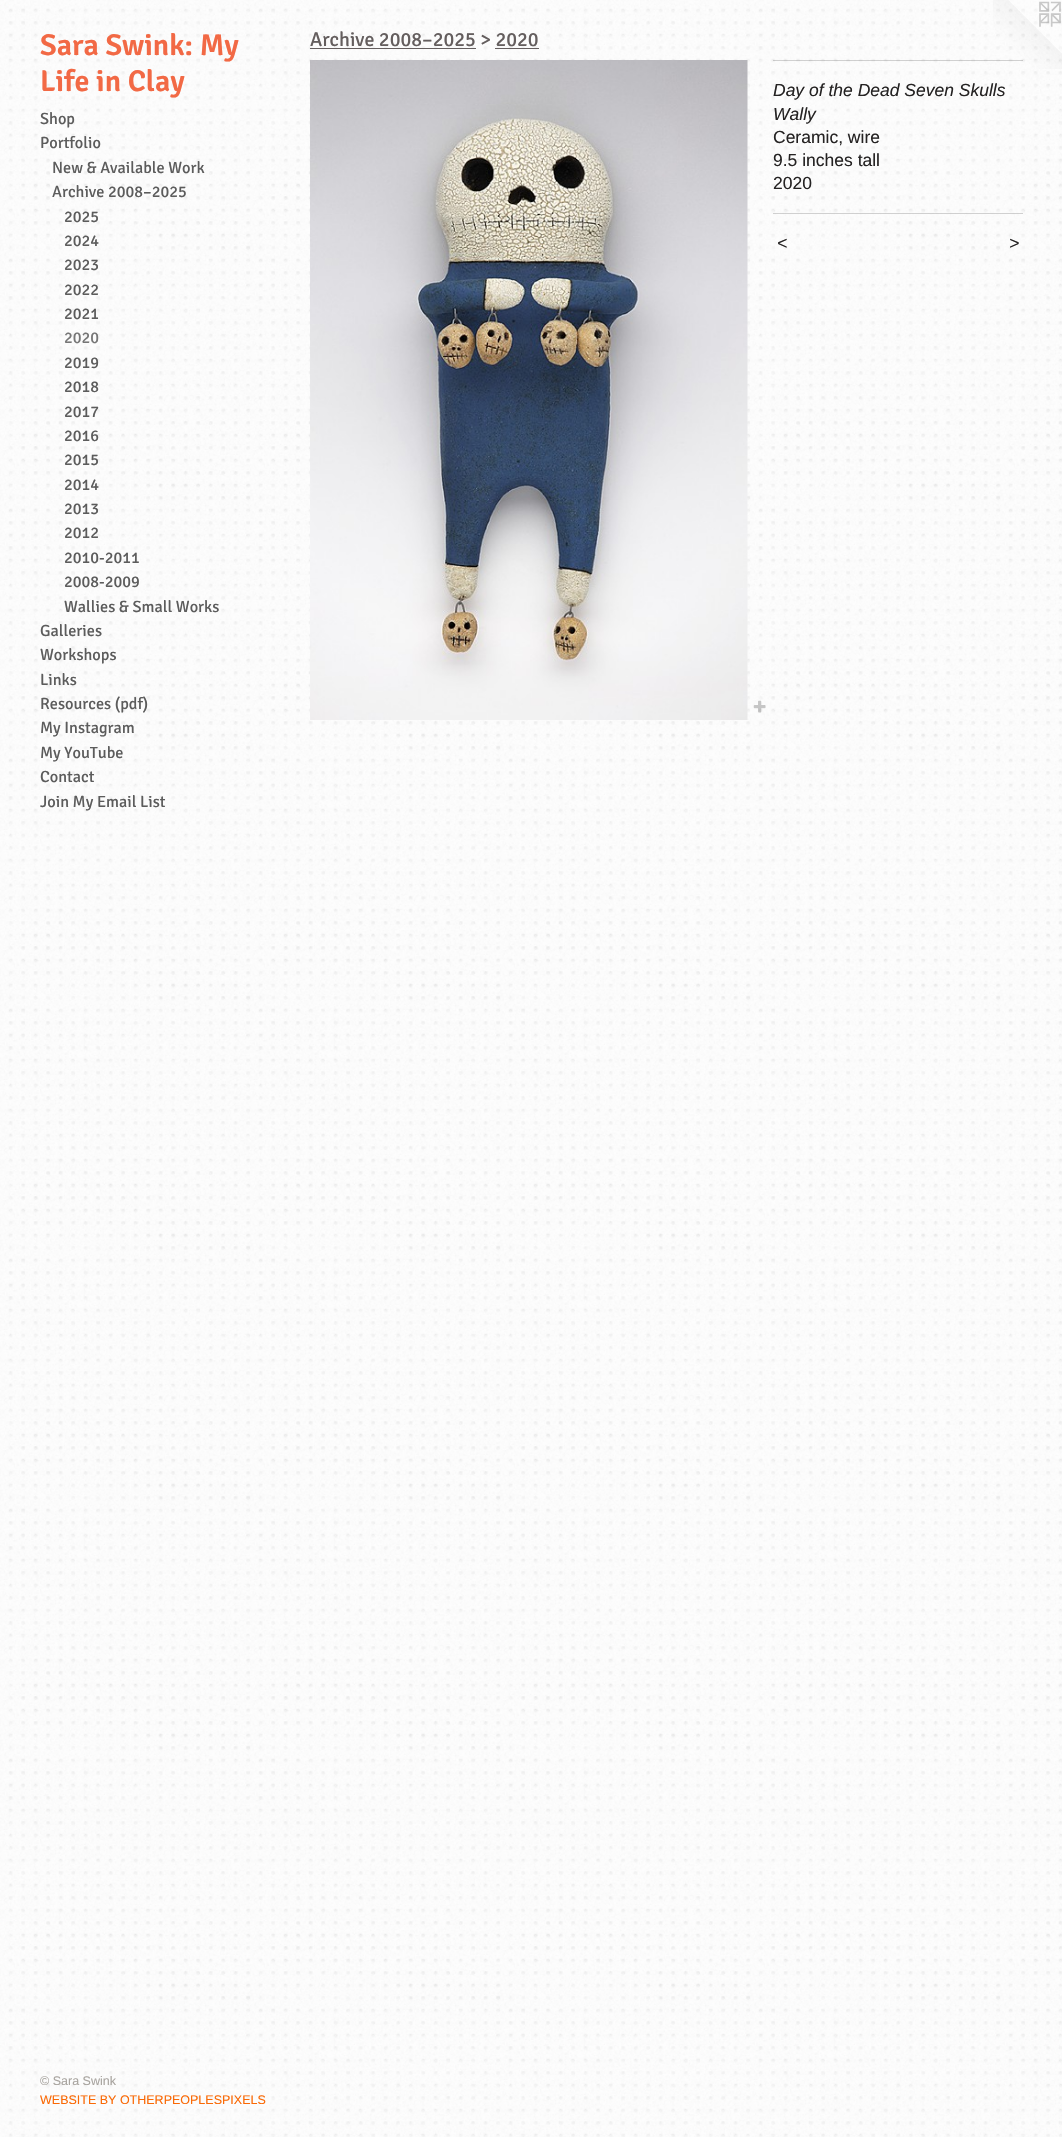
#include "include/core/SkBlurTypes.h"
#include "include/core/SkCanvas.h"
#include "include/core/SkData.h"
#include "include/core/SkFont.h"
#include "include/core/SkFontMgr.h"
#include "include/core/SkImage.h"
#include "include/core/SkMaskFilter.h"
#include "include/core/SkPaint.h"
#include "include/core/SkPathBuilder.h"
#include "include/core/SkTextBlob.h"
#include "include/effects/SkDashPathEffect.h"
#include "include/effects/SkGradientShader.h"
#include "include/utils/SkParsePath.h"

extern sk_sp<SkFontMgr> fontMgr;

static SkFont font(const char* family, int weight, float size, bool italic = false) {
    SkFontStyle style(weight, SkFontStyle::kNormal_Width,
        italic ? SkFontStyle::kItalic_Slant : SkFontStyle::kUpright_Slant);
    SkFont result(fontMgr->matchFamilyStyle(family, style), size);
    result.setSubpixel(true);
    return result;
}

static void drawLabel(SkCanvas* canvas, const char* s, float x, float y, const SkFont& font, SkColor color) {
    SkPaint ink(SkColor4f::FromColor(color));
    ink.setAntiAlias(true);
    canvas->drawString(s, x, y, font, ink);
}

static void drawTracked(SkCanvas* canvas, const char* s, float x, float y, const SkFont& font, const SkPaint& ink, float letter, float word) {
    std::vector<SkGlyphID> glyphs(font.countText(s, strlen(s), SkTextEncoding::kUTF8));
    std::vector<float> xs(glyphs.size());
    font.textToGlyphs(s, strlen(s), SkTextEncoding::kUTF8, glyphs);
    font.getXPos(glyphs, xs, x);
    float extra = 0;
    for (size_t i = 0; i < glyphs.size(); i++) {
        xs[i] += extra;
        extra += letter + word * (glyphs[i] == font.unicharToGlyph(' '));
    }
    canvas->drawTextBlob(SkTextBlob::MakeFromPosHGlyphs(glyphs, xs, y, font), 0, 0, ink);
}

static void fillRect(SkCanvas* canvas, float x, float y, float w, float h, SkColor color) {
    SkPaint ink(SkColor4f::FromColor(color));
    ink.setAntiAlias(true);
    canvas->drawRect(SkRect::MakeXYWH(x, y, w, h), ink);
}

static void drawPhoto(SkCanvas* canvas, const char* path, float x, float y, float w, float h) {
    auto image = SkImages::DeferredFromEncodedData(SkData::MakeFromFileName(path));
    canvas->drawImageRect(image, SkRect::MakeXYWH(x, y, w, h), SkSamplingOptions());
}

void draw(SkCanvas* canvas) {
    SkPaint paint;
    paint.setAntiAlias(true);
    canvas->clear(0xFFFFFFFF);
    drawPhoto(canvas, "assets/img1.png", 0, 0, 1062, 2137);
    SkFont font1 = font("Signika", 600, 30);
    drawLabel(canvas, "Sara Swink: My", 40, 55, font1, 0xFFF26945);
    drawLabel(canvas, "Life in Clay", 40, 91, font1, 0xFFF26945);
    SkFont font2 = font("Signika", 300, 16.25f);
    drawLabel(canvas, "Shop", 40, 124, font2, 0xFF5C5C5C);
    drawLabel(canvas, "Portfolio", 40, 148, font2, 0xFF5C5C5C);
    drawLabel(canvas, "New & Available Work", 52, 173, font2, 0xFF5C5C5C);
    drawLabel(canvas, "Archive 2008–2025", 52, 197, font2, 0xFF5C5C5C);
    drawLabel(canvas, "2025", 64, 222, font2, 0xFF5C5C5C);
    drawLabel(canvas, "2024", 64, 246, font2, 0xFF5C5C5C);
    drawLabel(canvas, "2023", 64, 270, font2, 0xFF5C5C5C);
    drawLabel(canvas, "2022", 64, 295, font2, 0xFF5C5C5C);
    drawLabel(canvas, "2021", 64, 319, font2, 0xFF5C5C5C);
    drawLabel(canvas, "2020", 64, 343, font2, 0xFF767676);
    drawLabel(canvas, "2019", 64, 368, font2, 0xFF5C5C5C);
    drawLabel(canvas, "2018", 64, 392, font2, 0xFF5C5C5C);
    drawLabel(canvas, "2017", 64, 417, font2, 0xFF5C5C5C);
    drawLabel(canvas, "2016", 64, 441, font2, 0xFF5C5C5C);
    drawLabel(canvas, "2015", 64, 465, font2, 0xFF5C5C5C);
    drawLabel(canvas, "2014", 64, 490, font2, 0xFF5C5C5C);
    drawLabel(canvas, "2013", 64, 514, font2, 0xFF5C5C5C);
    drawLabel(canvas, "2012", 64, 538, font2, 0xFF5C5C5C);
    drawLabel(canvas, "2010-2011", 64, 563, font2, 0xFF5C5C5C);
    drawLabel(canvas, "2008-2009", 64, 587, font2, 0xFF5C5C5C);
    drawLabel(canvas, "Wallies & Small Works", 64, 612, font2, 0xFF5C5C5C);
    drawLabel(canvas, "Galleries", 40, 636, font2, 0xFF5C5C5C);
    drawLabel(canvas, "Workshops", 40, 660, font2, 0xFF5C5C5C);
    drawLabel(canvas, "Links", 40, 685, font2, 0xFF5C5C5C);
    drawLabel(canvas, "Resources (pdf)", 40, 709, font2, 0xFF5C5C5C);
    drawLabel(canvas, "My Instagram", 40, 733, font2, 0xFF5C5C5C);
    drawLabel(canvas, "My YouTube", 40, 758, font2, 0xFF5C5C5C);
    drawLabel(canvas, "Contact", 40, 782, font2, 0xFF5C5C5C);
    drawLabel(canvas, "Join My Email List", 40, 807, font2, 0xFF5C5C5C);
    SkFont font3 = font("Liberation Sans", 400, 12.5f);
    drawLabel(canvas, "© Sara Swink", 40, 2085, font3, 0xFFA8A49F);
    drawLabel(canvas, "WEBSITE BY OTHERPEOPLESPIXELS", 40, 2104, font3, 0xFFFA6905);
    SkFont font4 = font("Signika", 300, 20);
    drawLabel(canvas, "Archive 2008–2025 > 2020", 310, 46, font4, 0xFF645E5E);
    fillRect(canvas, 310, 48, 166, 1, 0xFF645E5E);
    fillRect(canvas, 495, 48, 44, 1, 0xFF645E5E);
    drawPhoto(canvas, "assets/img2.png", 310, 60, 438, 660);
    drawPhoto(canvas, "assets/img3.png", 753, 700, 13, 13);
    drawPhoto(canvas, "assets/img4.png", 993, 0, 69, 69);
    fillRect(canvas, 773, 60, 250, 1, 0x33252323);
    SkFont font5 = font("Liberation Sans", 400, 17.5f, true);
    drawLabel(canvas, "Day of the Dead Seven Skulls", 773, 96, font5, 0xFF252323);
    drawLabel(canvas, "Wally", 773, 120, font5, 0xFF252323);
    SkFont font6 = font("Liberation Sans", 400, 17.5f);
    drawLabel(canvas, "Ceramic, wire", 773, 143, font6, 0xFF252323);
    drawLabel(canvas, "9.5 inches tall", 773, 166, font6, 0xFF252323);
    drawLabel(canvas, "2020", 773, 189, font6, 0xFF252323);
    fillRect(canvas, 773, 213, 250, 1, 0x33252323);
    paint.setColor(0xFF252323);
    drawTracked(canvas, "<", 777, 249, font5, paint, 1, 0);
    drawTracked(canvas, ">", 1009, 249, font5, paint, 1, 0);
}
